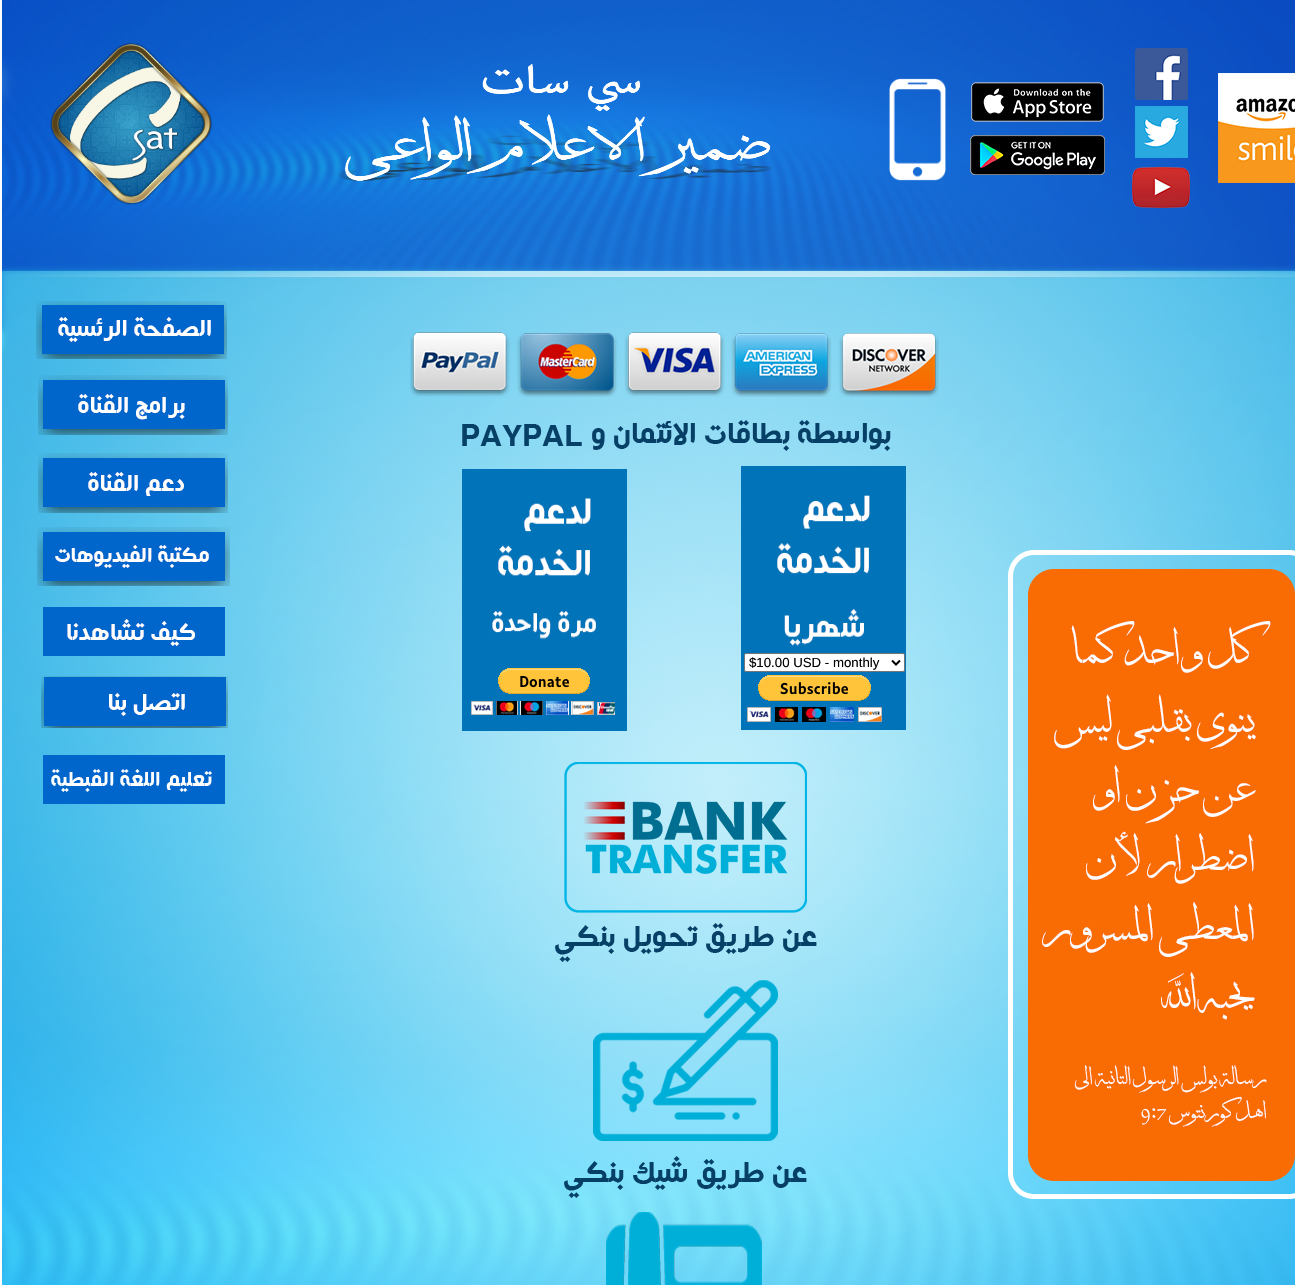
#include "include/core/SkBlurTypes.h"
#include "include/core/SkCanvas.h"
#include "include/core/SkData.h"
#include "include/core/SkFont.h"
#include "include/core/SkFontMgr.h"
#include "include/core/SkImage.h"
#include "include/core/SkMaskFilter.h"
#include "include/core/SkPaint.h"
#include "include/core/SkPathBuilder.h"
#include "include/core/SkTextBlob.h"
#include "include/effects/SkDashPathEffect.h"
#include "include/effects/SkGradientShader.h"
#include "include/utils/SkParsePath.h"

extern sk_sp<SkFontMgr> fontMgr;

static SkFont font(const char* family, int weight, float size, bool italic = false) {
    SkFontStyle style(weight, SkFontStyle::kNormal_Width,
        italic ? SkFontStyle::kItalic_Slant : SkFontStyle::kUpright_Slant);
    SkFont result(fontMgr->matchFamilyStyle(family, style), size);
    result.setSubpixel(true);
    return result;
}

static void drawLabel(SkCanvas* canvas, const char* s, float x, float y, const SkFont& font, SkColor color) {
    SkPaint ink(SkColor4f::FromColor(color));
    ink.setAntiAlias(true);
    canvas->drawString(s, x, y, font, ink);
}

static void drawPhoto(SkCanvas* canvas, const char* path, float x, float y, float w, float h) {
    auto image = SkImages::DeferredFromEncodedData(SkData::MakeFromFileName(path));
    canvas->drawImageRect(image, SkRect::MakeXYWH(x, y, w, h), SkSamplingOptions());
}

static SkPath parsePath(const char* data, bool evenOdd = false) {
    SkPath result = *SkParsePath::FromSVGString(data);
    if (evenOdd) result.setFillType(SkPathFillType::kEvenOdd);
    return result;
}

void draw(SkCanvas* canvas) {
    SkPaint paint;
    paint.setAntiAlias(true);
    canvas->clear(0xFFFFFFFF);
    drawPhoto(canvas, "assets/img1.png", 2, 0, 1293, 1285);
    drawPhoto(canvas, "assets/img2.png", 50, 42, 163, 163);
    drawPhoto(canvas, "assets/img3.png", 338, 64, 435, 117);
    drawPhoto(canvas, "assets/img4.png", 889, 78, 57, 103);
    drawPhoto(canvas, "assets/img5.png", 971, 82, 133, 40);
    drawPhoto(canvas, "assets/img6.png", 1135, 48, 53, 52);
    drawPhoto(canvas, "assets/img7.png", 1218, 73, 77, 110);
    drawPhoto(canvas, "assets/img8.png", 970, 135, 135, 40);
    drawPhoto(canvas, "assets/img9.png", 1135, 106, 53, 52);
    drawPhoto(canvas, "assets/img10.png", 1132, 167, 58, 41);
    drawPhoto(canvas, "assets/img11.png", 36, 301, 191, 58);
    drawPhoto(canvas, "assets/img12.png", 410, 332, 529, 65);
    drawPhoto(canvas, "assets/img13.png", 38, 375, 190, 60);
    drawPhoto(canvas, "assets/img14.png", 462, 420, 429, 31);
    drawPhoto(canvas, "assets/img15.png", 38, 453, 190, 60);
    drawPhoto(canvas, "assets/img16.png", 462, 469, 165, 262);
    drawPhoto(canvas, "assets/img17.png", 741, 466, 165, 264);
    drawPhoto(canvas, "assets/img18.png", 37, 527, 193, 59);
    drawPhoto(canvas, "assets/img19.png", 1008, 550, 287, 649);
    drawPhoto(canvas, "assets/img20.png", 43, 607, 182, 49);
    paint.setColor(0xFFFFFFFF);
    canvas->drawRoundRect(SkRect::MakeXYWH(744.5f, 653.5f, 160, 18), 1.5f, 1.5f, paint);
    paint.setStroke(true);
    paint.setStrokeWidth(1);
    paint.setColor(0xFF767676);
    canvas->drawRoundRect(SkRect::MakeXYWH(744.5f, 653.5f, 160, 18), 1.5f, 1.5f, paint);
    paint.setStrokeWidth(2);
    paint.setColor(0xFF000000);
    canvas->drawPath(parsePath("M892 660.5L896 664.5L900 660.5"), paint);
    SkFont font1 = font("Liberation Sans", 400, 13.25f);
    drawLabel(canvas, "$10.00 USD - monthly", 749, 667, font1, 0xFF000000);
    drawPhoto(canvas, "assets/img21.png", 747, 675, 135, 47);
    drawPhoto(canvas, "assets/img22.png", 41, 676, 187, 52);
    drawPhoto(canvas, "assets/img23.png", 471, 668, 144, 47);
    drawPhoto(canvas, "assets/img24.png", 43, 755, 182, 49);
    drawPhoto(canvas, "assets/img25.png", 564, 762, 243, 151);
    drawPhoto(canvas, "assets/img26.png", 555, 923, 262, 39);
    drawPhoto(canvas, "assets/img27.png", 593, 980, 185, 161);
    drawPhoto(canvas, "assets/img28.png", 564, 1156, 243, 42);
    drawPhoto(canvas, "assets/img29.png", 606, 1212, 156, 73);
}
